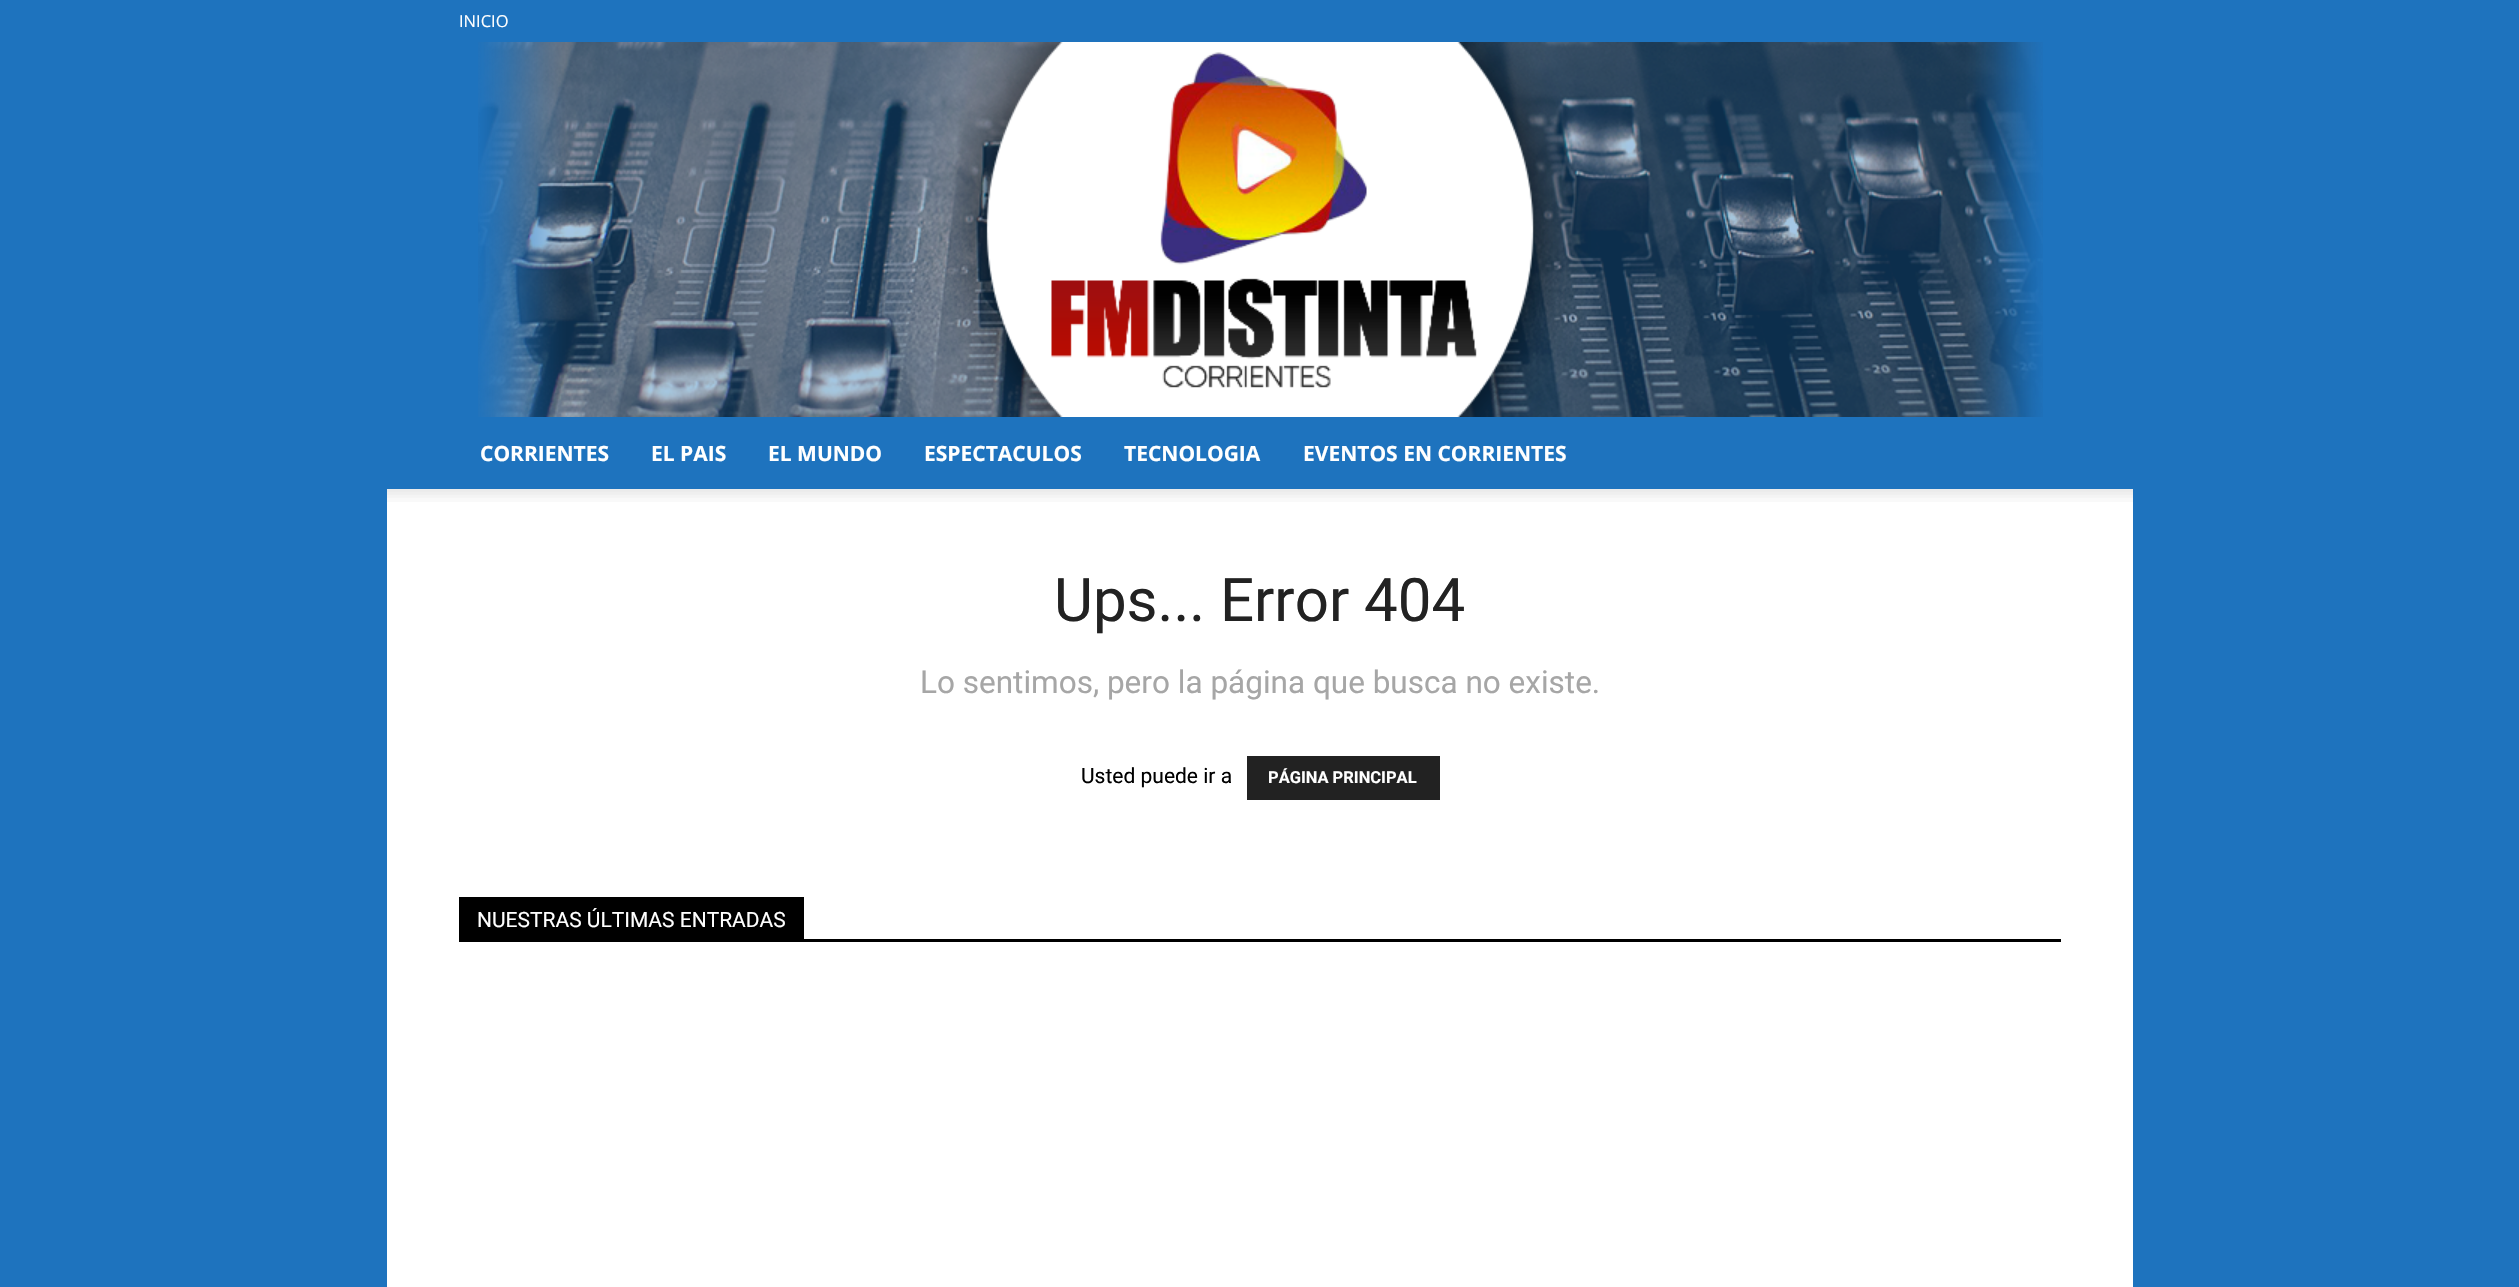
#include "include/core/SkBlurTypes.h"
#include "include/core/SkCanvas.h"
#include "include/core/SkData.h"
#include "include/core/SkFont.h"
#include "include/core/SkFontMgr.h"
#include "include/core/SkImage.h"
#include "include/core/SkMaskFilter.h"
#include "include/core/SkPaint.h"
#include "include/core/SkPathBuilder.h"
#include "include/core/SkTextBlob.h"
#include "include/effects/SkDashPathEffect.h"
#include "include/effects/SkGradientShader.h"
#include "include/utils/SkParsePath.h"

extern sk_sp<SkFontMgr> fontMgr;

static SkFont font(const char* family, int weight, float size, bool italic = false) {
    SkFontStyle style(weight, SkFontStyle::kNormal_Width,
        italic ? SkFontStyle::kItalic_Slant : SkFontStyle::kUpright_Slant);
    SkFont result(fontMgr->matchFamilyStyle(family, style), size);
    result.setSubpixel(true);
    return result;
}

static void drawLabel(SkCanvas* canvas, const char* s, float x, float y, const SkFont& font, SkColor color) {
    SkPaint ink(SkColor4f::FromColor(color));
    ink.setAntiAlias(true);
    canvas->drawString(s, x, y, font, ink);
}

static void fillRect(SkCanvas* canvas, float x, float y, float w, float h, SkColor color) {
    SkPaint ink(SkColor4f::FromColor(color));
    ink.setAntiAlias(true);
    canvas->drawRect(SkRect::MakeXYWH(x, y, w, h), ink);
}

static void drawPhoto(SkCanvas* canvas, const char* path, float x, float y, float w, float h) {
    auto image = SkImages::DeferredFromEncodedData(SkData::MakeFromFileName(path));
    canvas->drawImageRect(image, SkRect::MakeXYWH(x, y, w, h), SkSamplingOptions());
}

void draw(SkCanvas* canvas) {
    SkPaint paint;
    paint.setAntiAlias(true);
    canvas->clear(0xFF1E73BE);
    SkFont font1 = font("Open Sans", 400, 16.5f);
    drawLabel(canvas, "INICIO", 459, 27, font1, 0xFFFFFFFF);
    drawPhoto(canvas, "assets/img1.png", 478, 42, 1565, 375);
    SkFont font2 = font("Open Sans", 700, 21);
    drawLabel(canvas, "CORRIENTES", 480, 461, font2, 0xFFFFFFFF);
    drawLabel(canvas, "EL PAIS", 651, 461, font2, 0xFFFFFFFF);
    drawLabel(canvas, "EL MUNDO", 768, 461, font2, 0xFFFFFFFF);
    drawLabel(canvas, "ESPECTACULOS", 924, 461, font2, 0xFFFFFFFF);
    drawLabel(canvas, "TECNOLOGIA", 1124, 461, font2, 0xFFFFFFFF);
    drawLabel(canvas, "EVENTOS EN CORRIENTES", 1303, 461, font2, 0xFFFFFFFF);
    fillRect(canvas, 387, 489, 1746, 798, 0xFFFFFFFF);
    drawPhoto(canvas, "assets/img2.png", 387, 489, 1746, 13);
    SkFont font3 = font("Roboto", 400, 60);
    drawLabel(canvas, "Ups... Error 404", 1054, 621, font3, 0xFF222222);
    SkFont font4 = font("Roboto", 400, 31.5f);
    drawLabel(canvas, "Lo sentimos, pero la página que busca no existe.", 920, 693, font4, 0xFFA6A6A6);
    SkFont font5 = font("Roboto", 400, 21);
    drawLabel(canvas, "Usted puede ir a", 1081, 783, font5, 0xFF000000);
    fillRect(canvas, 1247, 756, 193, 44, 0xFF222222);
    SkFont font6 = font("Roboto", 700, 16.5f);
    drawLabel(canvas, "PÁGINA PRINCIPAL", 1268, 783, font6, 0xFFFFFFFF);
    fillRect(canvas, 459, 939, 1602, 3, 0xFF000000);
    fillRect(canvas, 459, 897, 345, 42, 0xFF000000);
    drawLabel(canvas, "NUESTRAS ÚLTIMAS ENTRADAS", 477, 927, font5, 0xFFFFFFFF);
}
